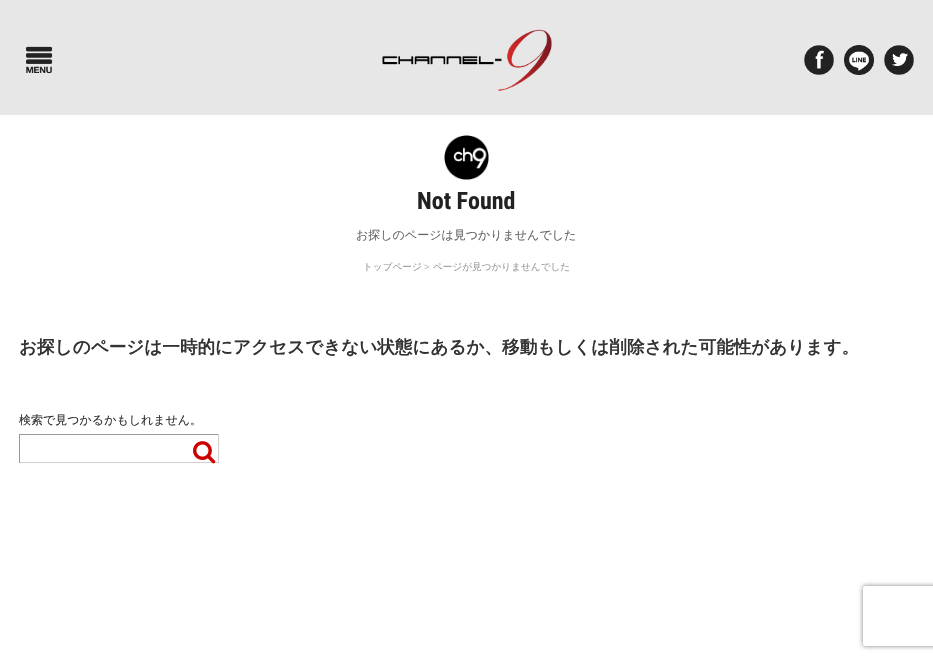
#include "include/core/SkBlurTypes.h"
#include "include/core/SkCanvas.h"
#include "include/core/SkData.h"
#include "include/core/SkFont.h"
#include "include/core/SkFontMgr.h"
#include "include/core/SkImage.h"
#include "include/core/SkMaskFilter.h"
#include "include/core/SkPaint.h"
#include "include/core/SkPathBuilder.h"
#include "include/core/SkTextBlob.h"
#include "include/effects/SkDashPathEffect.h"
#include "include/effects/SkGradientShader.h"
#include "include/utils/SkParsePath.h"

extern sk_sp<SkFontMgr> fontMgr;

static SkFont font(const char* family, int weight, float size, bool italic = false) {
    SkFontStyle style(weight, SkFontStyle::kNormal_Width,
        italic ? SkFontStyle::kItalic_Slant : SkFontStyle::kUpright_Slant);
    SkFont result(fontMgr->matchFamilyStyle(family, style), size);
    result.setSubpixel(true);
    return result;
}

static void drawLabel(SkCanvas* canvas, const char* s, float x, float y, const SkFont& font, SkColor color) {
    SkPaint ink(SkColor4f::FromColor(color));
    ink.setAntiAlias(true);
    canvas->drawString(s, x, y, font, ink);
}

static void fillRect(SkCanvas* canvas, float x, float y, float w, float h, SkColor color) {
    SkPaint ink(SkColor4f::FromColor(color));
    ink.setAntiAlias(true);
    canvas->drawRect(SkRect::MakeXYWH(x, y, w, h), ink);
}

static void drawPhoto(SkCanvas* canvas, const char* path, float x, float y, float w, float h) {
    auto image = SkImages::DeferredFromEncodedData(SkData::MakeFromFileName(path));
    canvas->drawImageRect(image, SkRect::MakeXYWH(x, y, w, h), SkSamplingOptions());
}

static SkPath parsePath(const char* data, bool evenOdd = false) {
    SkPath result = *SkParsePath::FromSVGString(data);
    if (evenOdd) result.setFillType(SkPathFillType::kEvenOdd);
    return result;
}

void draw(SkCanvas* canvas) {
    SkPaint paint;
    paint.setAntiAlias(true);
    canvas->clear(0xFFFFFFFF);
    fillRect(canvas, 0, 0, 933, 115, 0xFFE7E7E7);
    drawPhoto(canvas, "assets/img1.png", 26, 46, 27, 28);
    drawPhoto(canvas, "assets/img2.png", 382, 29, 170, 62);
    drawPhoto(canvas, "assets/img3.png", 804, 45, 30, 30);
    drawPhoto(canvas, "assets/img4.png", 844, 45, 30, 30);
    drawPhoto(canvas, "assets/img5.png", 884, 45, 30, 30);
    drawPhoto(canvas, "assets/img6.png", 444, 135, 45, 45);
    SkFont font1 = font("Roboto Condensed", 700, 24);
    drawLabel(canvas, "Not Found", 417, 209, font1, 0xFF222222);
    SkFont font2 = font("WenQuanYi Zen Hei", 500, 12);
    drawLabel(canvas, "お探しのページは見つかりませんでした", 356, 239, font2, 0xFF666666);
    SkFont font3 = font("WenQuanYi Zen Hei", 500, 9.6f);
    drawLabel(canvas, "トップページ", 363, 270, font3, 0xFF999999);
    SkFont font4 = font("Liberation Sans", 400, 9.6f);
    drawLabel(canvas, ">", 424, 270, font4, 0xFFC0C0C0);
    drawLabel(canvas, "ページが見つかりませんでした", 433, 270, font3, 0xFF999999);
    SkFont font5 = font("WenQuanYi Zen Hei", 700, 17.6f);
    drawLabel(canvas, "お探しのページは一時的にアクセスできない状態にあるか、移動もしくは削除された可能性があります。", 19, 353, font5, 0xFF333333);
    drawLabel(canvas, "検索で見つかるかもしれません。", 19, 424, font2, 0xFF333333);
    fillRect(canvas, 19, 434, 200, 1, 0xFF999999);
    fillRect(canvas, 218, 434, 1, 29, 0xFFD0D0D0);
    fillRect(canvas, 19, 462, 200, 1, 0xFFD0D0D0);
    fillRect(canvas, 19, 434, 1, 29, 0xFF999999);
    drawPhoto(canvas, "assets/img7.png", 193, 441, 23, 23);
    canvas->save();
    canvas->clipPath(parsePath("M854 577H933V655H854ZM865 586H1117C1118 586 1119 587 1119 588V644C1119 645 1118 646 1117 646H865C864 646 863 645 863 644V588C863 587 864 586 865 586Z", true), true);
    paint.setColor(0xFF808080);
    paint.setMaskFilter(SkMaskFilter::MakeBlur(kNormal_SkBlurStyle, 2.5f));
    canvas->drawRoundRect(SkRect::MakeXYWH(863, 586, 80, 60), 2, 2, paint);
    paint.setMaskFilter(nullptr);
    canvas->restore();
}
